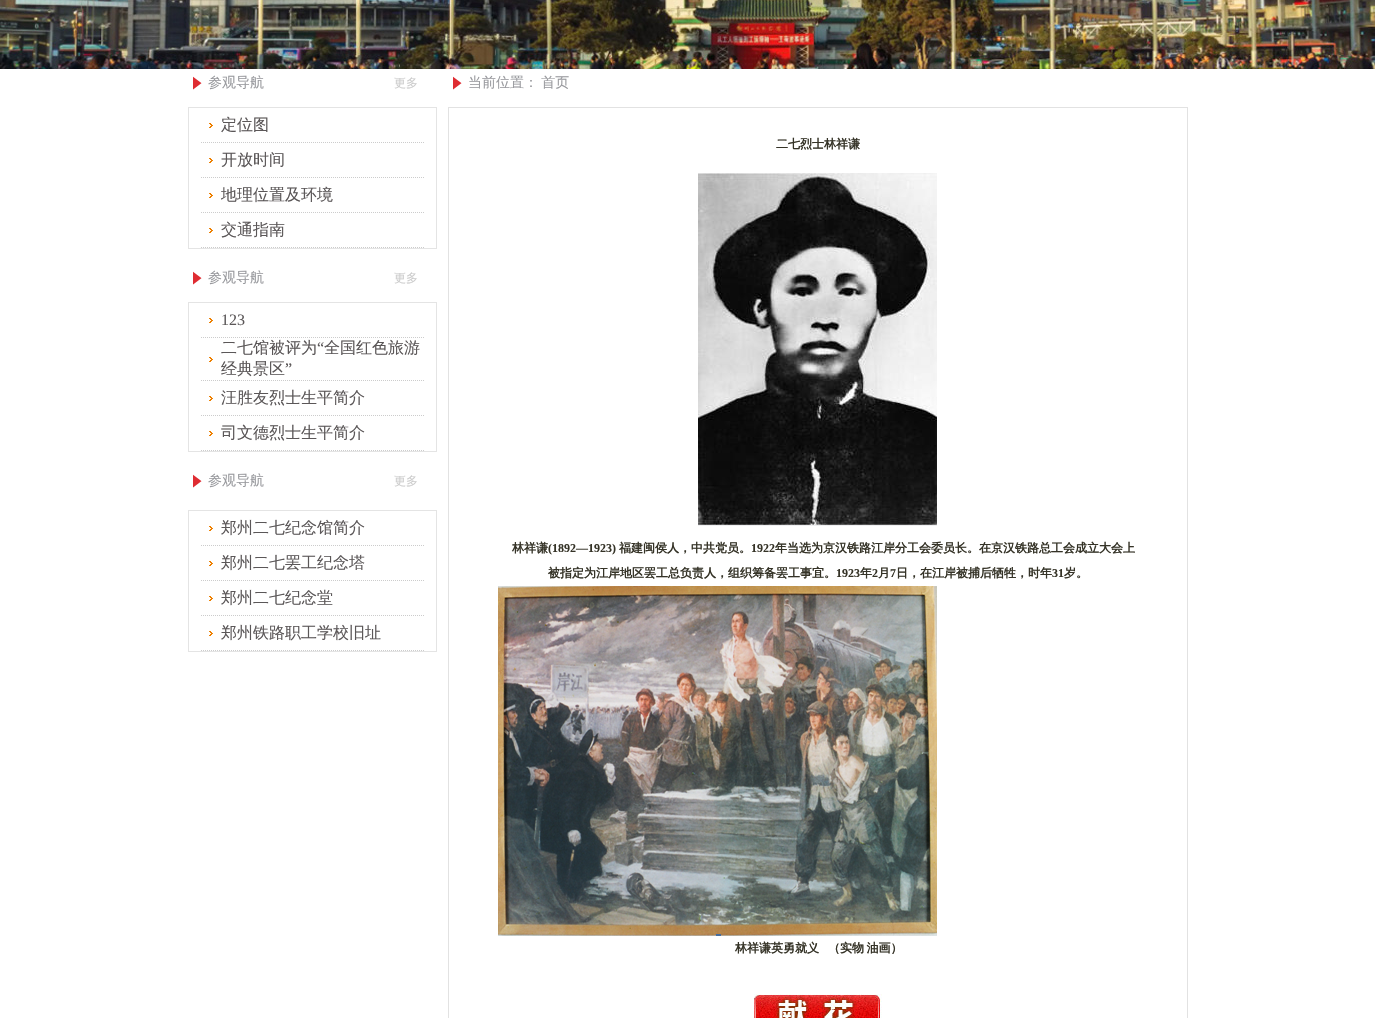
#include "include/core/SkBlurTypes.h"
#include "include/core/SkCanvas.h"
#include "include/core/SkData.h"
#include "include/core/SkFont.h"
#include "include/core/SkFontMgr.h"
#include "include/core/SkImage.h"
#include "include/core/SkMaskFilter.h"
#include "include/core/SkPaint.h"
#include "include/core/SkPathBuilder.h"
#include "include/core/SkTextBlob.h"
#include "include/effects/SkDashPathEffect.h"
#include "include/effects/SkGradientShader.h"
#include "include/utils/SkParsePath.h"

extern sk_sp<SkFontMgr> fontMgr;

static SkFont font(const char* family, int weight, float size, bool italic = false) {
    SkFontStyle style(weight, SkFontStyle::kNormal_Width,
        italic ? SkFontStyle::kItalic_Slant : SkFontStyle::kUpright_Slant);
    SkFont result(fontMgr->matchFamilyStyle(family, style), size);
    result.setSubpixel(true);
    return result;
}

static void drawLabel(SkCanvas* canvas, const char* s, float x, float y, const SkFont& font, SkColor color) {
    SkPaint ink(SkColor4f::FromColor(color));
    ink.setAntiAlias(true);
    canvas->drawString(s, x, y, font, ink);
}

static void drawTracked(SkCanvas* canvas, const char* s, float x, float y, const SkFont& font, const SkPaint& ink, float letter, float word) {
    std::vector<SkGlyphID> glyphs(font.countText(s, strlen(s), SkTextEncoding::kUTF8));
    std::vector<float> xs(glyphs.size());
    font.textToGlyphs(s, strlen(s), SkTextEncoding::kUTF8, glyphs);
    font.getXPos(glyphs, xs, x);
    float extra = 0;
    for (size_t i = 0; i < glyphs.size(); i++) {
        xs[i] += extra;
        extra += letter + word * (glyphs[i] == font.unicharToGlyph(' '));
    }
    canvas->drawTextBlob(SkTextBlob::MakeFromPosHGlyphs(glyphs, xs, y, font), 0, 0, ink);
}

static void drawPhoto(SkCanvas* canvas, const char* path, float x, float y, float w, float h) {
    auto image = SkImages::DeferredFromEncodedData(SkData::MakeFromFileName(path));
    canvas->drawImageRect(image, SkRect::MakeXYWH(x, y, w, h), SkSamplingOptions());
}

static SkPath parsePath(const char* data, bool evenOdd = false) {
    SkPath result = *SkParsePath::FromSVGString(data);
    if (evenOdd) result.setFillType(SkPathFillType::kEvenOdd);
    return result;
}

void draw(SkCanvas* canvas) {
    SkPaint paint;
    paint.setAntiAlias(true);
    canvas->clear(0xFFFFFFFF);
    drawPhoto(canvas, "assets/img1.png", 0, 0, 1375, 69);
    drawPhoto(canvas, "assets/img2.png", 193, 76, 9, 14);
    SkFont font1 = font("WenQuanYi Zen Hei", 500, 14);
    drawLabel(canvas, "参观导航", 208, 87, font1, 0xFF999A9E);
    SkFont font2 = font("WenQuanYi Zen Hei", 500, 12);
    drawLabel(canvas, "更多", 394, 87, font2, 0xFFCCCCCC);
    paint.setStroke(true);
    paint.setStrokeWidth(1);
    paint.setColor(0xFFE4E4E4);
    canvas->drawRect(SkRect::MakeXYWH(188.5f, 107.5f, 248, 141), paint);
    paint.setColor(0xFFCCCCCC);
    paint.setPathEffect(SkDashPathEffect::Make({{1, 1}}, 0));
    canvas->drawPath(parsePath("M201 142.5H424"), paint);
    paint.setPathEffect(nullptr);
    drawPhoto(canvas, "assets/img3.png", 209, 123, 4, 5);
    SkFont font3 = font("WenQuanYi Zen Hei", 500, 16);
    drawLabel(canvas, "定位图", 221, 130, font3, 0xFF5B5758);
    paint.setPathEffect(SkDashPathEffect::Make({{1, 1}}, 0));
    canvas->drawPath(parsePath("M201 177.5H424"), paint);
    paint.setPathEffect(nullptr);
    drawPhoto(canvas, "assets/img3.png", 209, 158, 4, 5);
    drawLabel(canvas, "开放时间", 221, 165, font3, 0xFF5B5758);
    paint.setPathEffect(SkDashPathEffect::Make({{1, 1}}, 0));
    canvas->drawPath(parsePath("M201 212.5H424"), paint);
    paint.setPathEffect(nullptr);
    drawPhoto(canvas, "assets/img3.png", 209, 193, 4, 5);
    drawLabel(canvas, "地理位置及环境", 221, 200, font3, 0xFF5B5758);
    paint.setPathEffect(SkDashPathEffect::Make({{1, 1}}, 0));
    canvas->drawPath(parsePath("M201 247.5H424"), paint);
    paint.setPathEffect(nullptr);
    drawPhoto(canvas, "assets/img3.png", 209, 228, 4, 5);
    drawLabel(canvas, "交通指南", 221, 235, font3, 0xFF5B5758);
    drawPhoto(canvas, "assets/img2.png", 193, 271, 9, 14);
    drawLabel(canvas, "参观导航", 208, 282, font1, 0xFF999A9E);
    drawLabel(canvas, "更多", 394, 282, font2, 0xFFCCCCCC);
    paint.setColor(0xFFE4E4E4);
    canvas->drawRect(SkRect::MakeXYWH(188.5f, 302.5f, 248, 149), paint);
    paint.setColor(0xFFCCCCCC);
    paint.setPathEffect(SkDashPathEffect::Make({{1, 1}}, 0));
    canvas->drawPath(parsePath("M201 337.5H424"), paint);
    paint.setPathEffect(nullptr);
    drawPhoto(canvas, "assets/img3.png", 209, 318, 4, 5);
    SkFont font4 = font("Liberation Serif", 400, 16);
    drawLabel(canvas, "123", 221, 325, font4, 0xFF5B5758);
    paint.setPathEffect(SkDashPathEffect::Make({{1, 1}}, 0));
    canvas->drawPath(parsePath("M201 380.5H424"), paint);
    paint.setPathEffect(nullptr);
    drawPhoto(canvas, "assets/img3.png", 209, 357, 4, 5);
    drawLabel(canvas, "二七馆被评为", 221, 353, font3, 0xFF5B5758);
    drawLabel(canvas, "“", 317, 353, font4, 0xFF5B5758);
    drawLabel(canvas, "全国红色旅游", 324, 353, font3, 0xFF5B5758);
    drawLabel(canvas, "经典景区", 221, 374, font3, 0xFF5B5758);
    drawLabel(canvas, "”", 285, 374, font4, 0xFF5B5758);
    paint.setPathEffect(SkDashPathEffect::Make({{1, 1}}, 0));
    canvas->drawPath(parsePath("M201 415.5H424"), paint);
    paint.setPathEffect(nullptr);
    drawPhoto(canvas, "assets/img3.png", 209, 396, 4, 5);
    drawLabel(canvas, "汪胜友烈士生平简介", 221, 403, font3, 0xFF5B5758);
    paint.setPathEffect(SkDashPathEffect::Make({{1, 1}}, 0));
    canvas->drawPath(parsePath("M201 450.5H424"), paint);
    paint.setPathEffect(nullptr);
    drawPhoto(canvas, "assets/img3.png", 209, 431, 4, 5);
    drawLabel(canvas, "司文德烈士生平简介", 221, 438, font3, 0xFF5B5758);
    drawPhoto(canvas, "assets/img2.png", 193, 474, 9, 14);
    drawLabel(canvas, "参观导航", 208, 485, font1, 0xFF999A9E);
    drawLabel(canvas, "更多", 394, 485, font2, 0xFFCCCCCC);
    paint.setColor(0xFFE4E4E4);
    canvas->drawRect(SkRect::MakeXYWH(188.5f, 510.5f, 248, 141), paint);
    paint.setColor(0xFFCCCCCC);
    paint.setPathEffect(SkDashPathEffect::Make({{1, 1}}, 0));
    canvas->drawPath(parsePath("M201 545.5H424"), paint);
    paint.setPathEffect(nullptr);
    drawPhoto(canvas, "assets/img3.png", 209, 526, 4, 5);
    drawLabel(canvas, "郑州二七纪念馆简介", 221, 533, font3, 0xFF5B5758);
    paint.setPathEffect(SkDashPathEffect::Make({{1, 1}}, 0));
    canvas->drawPath(parsePath("M201 580.5H424"), paint);
    paint.setPathEffect(nullptr);
    drawPhoto(canvas, "assets/img3.png", 209, 561, 4, 5);
    drawLabel(canvas, "郑州二七罢工纪念塔", 221, 568, font3, 0xFF5B5758);
    paint.setPathEffect(SkDashPathEffect::Make({{1, 1}}, 0));
    canvas->drawPath(parsePath("M201 615.5H424"), paint);
    paint.setPathEffect(nullptr);
    drawPhoto(canvas, "assets/img3.png", 209, 596, 4, 5);
    drawLabel(canvas, "郑州二七纪念堂", 221, 603, font3, 0xFF5B5758);
    paint.setPathEffect(SkDashPathEffect::Make({{1, 1}}, 0));
    canvas->drawPath(parsePath("M201 650.5H424"), paint);
    paint.setPathEffect(nullptr);
    drawPhoto(canvas, "assets/img3.png", 209, 631, 4, 5);
    drawLabel(canvas, "郑州铁路职工学校旧址", 221, 638, font3, 0xFF5B5758);
    drawPhoto(canvas, "assets/img2.png", 453, 76, 9, 14);
    paint.setStroke(false);
    paint.setColor(0xFF999A9E);
    drawTracked(canvas, "当前位置： 首页", 468, 87, font1, paint, 0, -1);
    paint.setStroke(true);
    paint.setColor(0xFFE2E2E2);
    canvas->drawRect(SkRect::MakeXYWH(448.5f, 107.5f, 739, 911), paint);
    SkFont font5 = font("WenQuanYi Zen Hei", 700, 12);
    drawLabel(canvas, "二七烈士林祥谦", 776, 148, font5, 0xFF353327);
    drawPhoto(canvas, "assets/img4.png", 698, 173, 239, 353);
    drawLabel(canvas, "林祥谦", 512, 552, font5, 0xFF353327);
    SkFont font6 = font("Liberation Serif", 700, 12);
    drawLabel(canvas, "(1892—1923)", 548, 552, font6, 0xFF353327);
    drawLabel(canvas, "福建闽侯人，中共党员。", 619, 552, font5, 0xFF353327);
    drawLabel(canvas, "1922", 751, 552, font6, 0xFF353327);
    drawLabel(canvas, "年当选为京汉铁路江岸分工会委员长。在京汉铁路总工会成立大会上", 775, 552, font5, 0xFF353327);
    drawLabel(canvas, "被指定为江岸地区罢工总负责人，组织筹备罢工事宜。", 548, 577, font5, 0xFF353327);
    drawLabel(canvas, "1923", 836, 577, font6, 0xFF353327);
    drawLabel(canvas, "年", 860, 577, font5, 0xFF353327);
    drawLabel(canvas, "2", 872, 577, font6, 0xFF353327);
    drawLabel(canvas, "月", 878, 577, font5, 0xFF353327);
    drawLabel(canvas, "7", 890, 577, font6, 0xFF353327);
    drawLabel(canvas, "日，在江岸被捕后牺牲，时年", 896, 577, font5, 0xFF353327);
    drawLabel(canvas, "31", 1052, 577, font6, 0xFF353327);
    drawLabel(canvas, "岁。", 1064, 577, font5, 0xFF353327);
    drawPhoto(canvas, "assets/img5.png", 498, 586, 439, 350);
    drawLabel(canvas, "林祥谦英勇就义", 735, 952, font5, 0xFF353327);
    paint.setStroke(false);
    paint.setColor(0xFF353327);
    drawTracked(canvas, "（实物 油画）", 828, 952, font5, paint, 0, -1);
    drawPhoto(canvas, "assets/img6.png", 754, 994, 128, 24);
}
